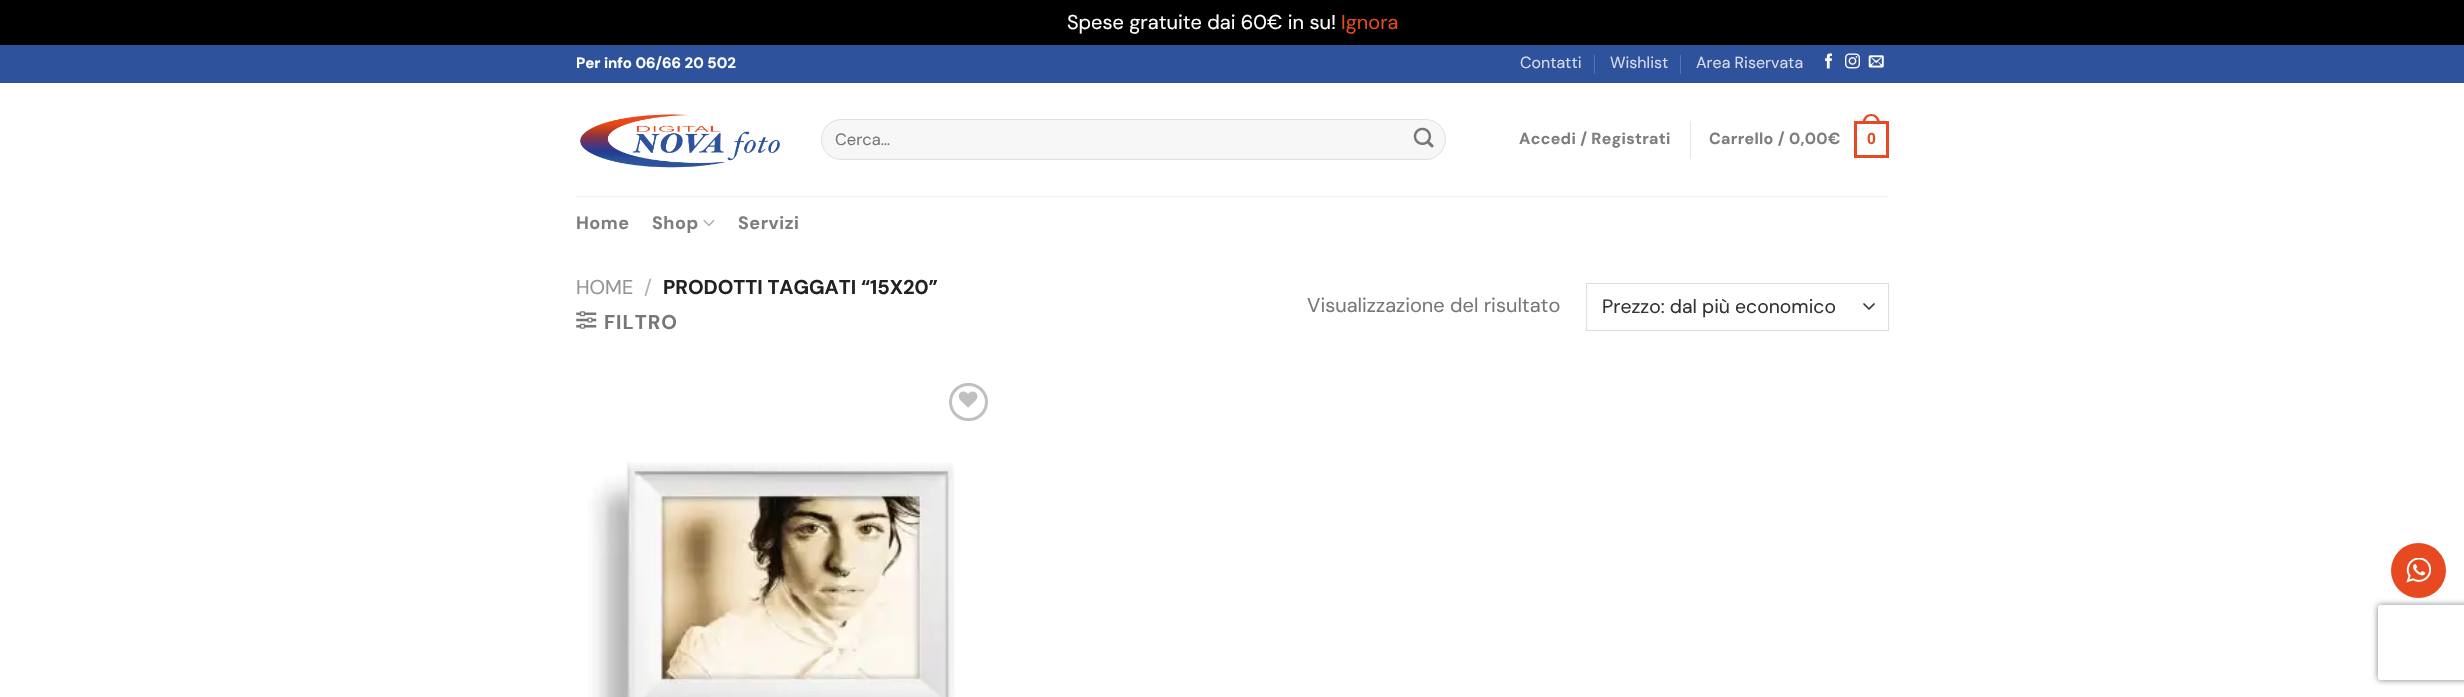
#include "include/core/SkBlurTypes.h"
#include "include/core/SkCanvas.h"
#include "include/core/SkData.h"
#include "include/core/SkFont.h"
#include "include/core/SkFontMgr.h"
#include "include/core/SkImage.h"
#include "include/core/SkMaskFilter.h"
#include "include/core/SkPaint.h"
#include "include/core/SkPathBuilder.h"
#include "include/core/SkTextBlob.h"
#include "include/effects/SkDashPathEffect.h"
#include "include/effects/SkGradientShader.h"
#include "include/utils/SkParsePath.h"

extern sk_sp<SkFontMgr> fontMgr;

static SkFont font(const char* family, int weight, float size, bool italic = false) {
    SkFontStyle style(weight, SkFontStyle::kNormal_Width,
        italic ? SkFontStyle::kItalic_Slant : SkFontStyle::kUpright_Slant);
    SkFont result(fontMgr->matchFamilyStyle(family, style), size);
    result.setSubpixel(true);
    return result;
}

static void drawLabel(SkCanvas* canvas, const char* s, float x, float y, const SkFont& font, SkColor color) {
    SkPaint ink(SkColor4f::FromColor(color));
    ink.setAntiAlias(true);
    canvas->drawString(s, x, y, font, ink);
}

static void drawTracked(SkCanvas* canvas, const char* s, float x, float y, const SkFont& font, const SkPaint& ink, float letter, float word) {
    std::vector<SkGlyphID> glyphs(font.countText(s, strlen(s), SkTextEncoding::kUTF8));
    std::vector<float> xs(glyphs.size());
    font.textToGlyphs(s, strlen(s), SkTextEncoding::kUTF8, glyphs);
    font.getXPos(glyphs, xs, x);
    float extra = 0;
    for (size_t i = 0; i < glyphs.size(); i++) {
        xs[i] += extra;
        extra += letter + word * (glyphs[i] == font.unicharToGlyph(' '));
    }
    canvas->drawTextBlob(SkTextBlob::MakeFromPosHGlyphs(glyphs, xs, y, font), 0, 0, ink);
}

static void fillRect(SkCanvas* canvas, float x, float y, float w, float h, SkColor color) {
    SkPaint ink(SkColor4f::FromColor(color));
    ink.setAntiAlias(true);
    canvas->drawRect(SkRect::MakeXYWH(x, y, w, h), ink);
}

static void fillRRect(SkCanvas* canvas, float x, float y, float w, float h, float radius, SkColor color) {
    SkPaint ink(SkColor4f::FromColor(color));
    ink.setAntiAlias(true);
    canvas->drawRoundRect(SkRect::MakeXYWH(x, y, w, h), radius, radius, ink);
}

static void drawPhoto(SkCanvas* canvas, const char* path, float x, float y, float w, float h) {
    auto image = SkImages::DeferredFromEncodedData(SkData::MakeFromFileName(path));
    canvas->drawImageRect(image, SkRect::MakeXYWH(x, y, w, h), SkSamplingOptions());
}

static SkPath parsePath(const char* data, bool evenOdd = false) {
    SkPath result = *SkParsePath::FromSVGString(data);
    if (evenOdd) result.setFillType(SkPathFillType::kEvenOdd);
    return result;
}

void draw(SkCanvas* canvas) {
    SkPaint paint;
    paint.setAntiAlias(true);
    canvas->clear(0xFF000000);
    SkFont font1 = font("DM Sans", 400, 20);
    drawLabel(canvas, "Spese gratuite dai 60€ in su!", 1067, 29, font1, 0xFFFFFFFF);
    drawLabel(canvas, "Ignora", 1341, 29, font1, 0xFFE74920);
    fillRect(canvas, 0, 83, 2464, 614, 0xFFFFFFFF);
    fillRect(canvas, 0, 45, 2464, 38, 0xFF2F529C);
    SkFont font2 = font("DM Sans", 700, 15);
    drawLabel(canvas, "Per info 06/66 20 502", 576, 68, font2, 0xFFFFFFFF);
    SkFont font3 = font("DM Sans", 400, 16);
    drawLabel(canvas, "Contatti", 1520, 68, font3, 0xFFD5DCEB);
    fillRect(canvas, 1594, 55, 1, 19, 0xFF5975B0);
    drawLabel(canvas, "Wishlist", 1610, 68, font3, 0xFFD5DCEB);
    fillRect(canvas, 1680, 55, 1, 19, 0xFF5975B0);
    drawLabel(canvas, "Area Riservata", 1696, 68, font3, 0xFFD5DCEB);
    drawPhoto(canvas, "assets/img1.png", 1825, 53, 7, 16);
    drawPhoto(canvas, "assets/img2.png", 1845, 53, 15, 16);
    drawPhoto(canvas, "assets/img3.png", 1868, 55, 16, 13);
    drawPhoto(canvas, "assets/img4.png", 580, 114, 200, 54);
    fillRRect(canvas, 821, 119, 625, 41, 20.5f, 0xFFF7F7F7);
    paint.setStroke(true);
    paint.setStrokeWidth(1);
    paint.setColor(0x17000000);
    canvas->drawRoundRect(SkRect::MakeXYWH(821.5f, 119.5f, 624, 40), 20, 20, paint);
    SkFont font4 = font("DM Sans", 400, 16.5f);
    drawLabel(canvas, "Cerca…", 835, 145, font4, 0xFF777777);
    drawPhoto(canvas, "assets/img5.png", 1413, 127, 21, 21);
    SkFont font5 = font("DM Sans", 700, 16);
    paint.setStroke(false);
    paint.setColor(0xFF7D7D7D);
    drawTracked(canvas, "Accedi / Registrati", 1519, 144, font5, paint, 0.3f, 0);
    fillRect(canvas, 1690, 121, 1, 38, 0xFFE6E6E6);
    drawTracked(canvas, "Carrello / 0,00€", 1709, 144, font5, paint, 0.3f, 0);
    paint.setStroke(true);
    paint.setStrokeWidth(3);
    paint.setColor(0xFFE74920);
    canvas->drawRect(SkRect::MakeXYWH(1855.5f, 122.5f, 32, 34), paint);
    paint.setStroke(false);
    canvas->drawPath(parsePath("M1871 114C1877 114 1880 118.5 1880 124H1862.5C1862.5 118.5 1865.5 114 1871 114ZM1871 116C1875.5 116 1877.5 120 1877.5 124H1865C1865 120 1867 116 1871 116Z", true), paint);
    SkFont font6 = font("Liberation Sans", 700, 16);
    drawTracked(canvas, "0", 1867, 144, font6, paint, 0.3f, 0);
    fillRect(canvas, 576, 196, 1313, 1, 0xFFF1F1F1);
    SkFont font7 = font("DM Sans", 700, 18);
    paint.setColor(0xFF7D7D7D);
    drawTracked(canvas, "Home", 576, 229, font7, paint, 0.5f, 0);
    drawTracked(canvas, "Shop", 652, 229, font7, paint, 0.5f, 0);
    drawPhoto(canvas, "assets/img6.png", 703, 219, 12, 8);
    drawTracked(canvas, "Servizi", 738, 229, font7, paint, 0.5f, 0);
    drawLabel(canvas, "HOME", 576, 294, font1, 0xFF949494);
    drawLabel(canvas, "/", 644, 294, font1, 0xFFB2B2B2);
    SkFont font8 = font("DM Sans", 700, 20);
    drawLabel(canvas, "PRODOTTI TAGGATI “15X20”", 663, 294, font8, 0xFF222222);
    drawPhoto(canvas, "assets/img7.png", 576, 311, 21, 18);
    paint.setColor(0xFF777777);
    drawTracked(canvas, "FILTRO", 604, 329, font8, paint, 1, 0);
    drawLabel(canvas, "Visualizzazione del risultato", 1307, 312, font1, 0xFF777777);
    paint.setStroke(true);
    paint.setStrokeWidth(1.7f);
    paint.setStrokeCap(SkPaint::kRound_Cap);
    paint.setStrokeJoin(SkPaint::kRound_Join);
    paint.setColor(0xFF333333);
    canvas->drawPath(parsePath("M1864 304L1869 309L1874 304"), paint);
    paint.setStrokeWidth(1);
    paint.setStrokeCap(SkPaint::kButt_Cap);
    paint.setStrokeJoin(SkPaint::kMiter_Join);
    paint.setColor(0xFFDDDDDD);
    canvas->drawRect(SkRect::MakeXYWH(1586.5f, 283.5f, 302, 47), paint);
    SkFont font9 = font("DM Sans", 400, 19.4f);
    drawLabel(canvas, "Prezzo: dal più economico", 1602, 313, font9, 0xFF333333);
    paint.setStrokeWidth(3);
    paint.setColor(0xFFC0C0C0);
    canvas->drawRoundRect(SkRect::MakeXYWH(950.5f, 384.5f, 36, 35), 17.5f, 17.5f, paint);
    drawPhoto(canvas, "assets/img8.png", 958, 391, 20, 17);
    drawPhoto(canvas, "assets/img9.png", 588, 462, 367, 235);
    canvas->save();
    canvas->clipPath(parsePath("M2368 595H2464V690H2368ZM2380.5 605H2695.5C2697 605 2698 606 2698 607.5V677.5C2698 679 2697 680 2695.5 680H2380.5C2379 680 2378 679 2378 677.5V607.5C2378 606 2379 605 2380.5 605Z", true), true);
    paint.setStroke(false);
    paint.setColor(0xFF808080);
    paint.setMaskFilter(SkMaskFilter::MakeBlur(kNormal_SkBlurStyle, 3));
    canvas->drawRoundRect(SkRect::MakeXYWH(2378, 605, 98, 75), 2.5f, 2.5f, paint);
    paint.setMaskFilter(nullptr);
    canvas->restore();
    paint.setColor(0xFFE74920);
    canvas->drawCircle(2418.5f, 570.5f, 27.5f, paint);
    drawPhoto(canvas, "assets/img10.png", 2406, 558, 25, 25);
}
